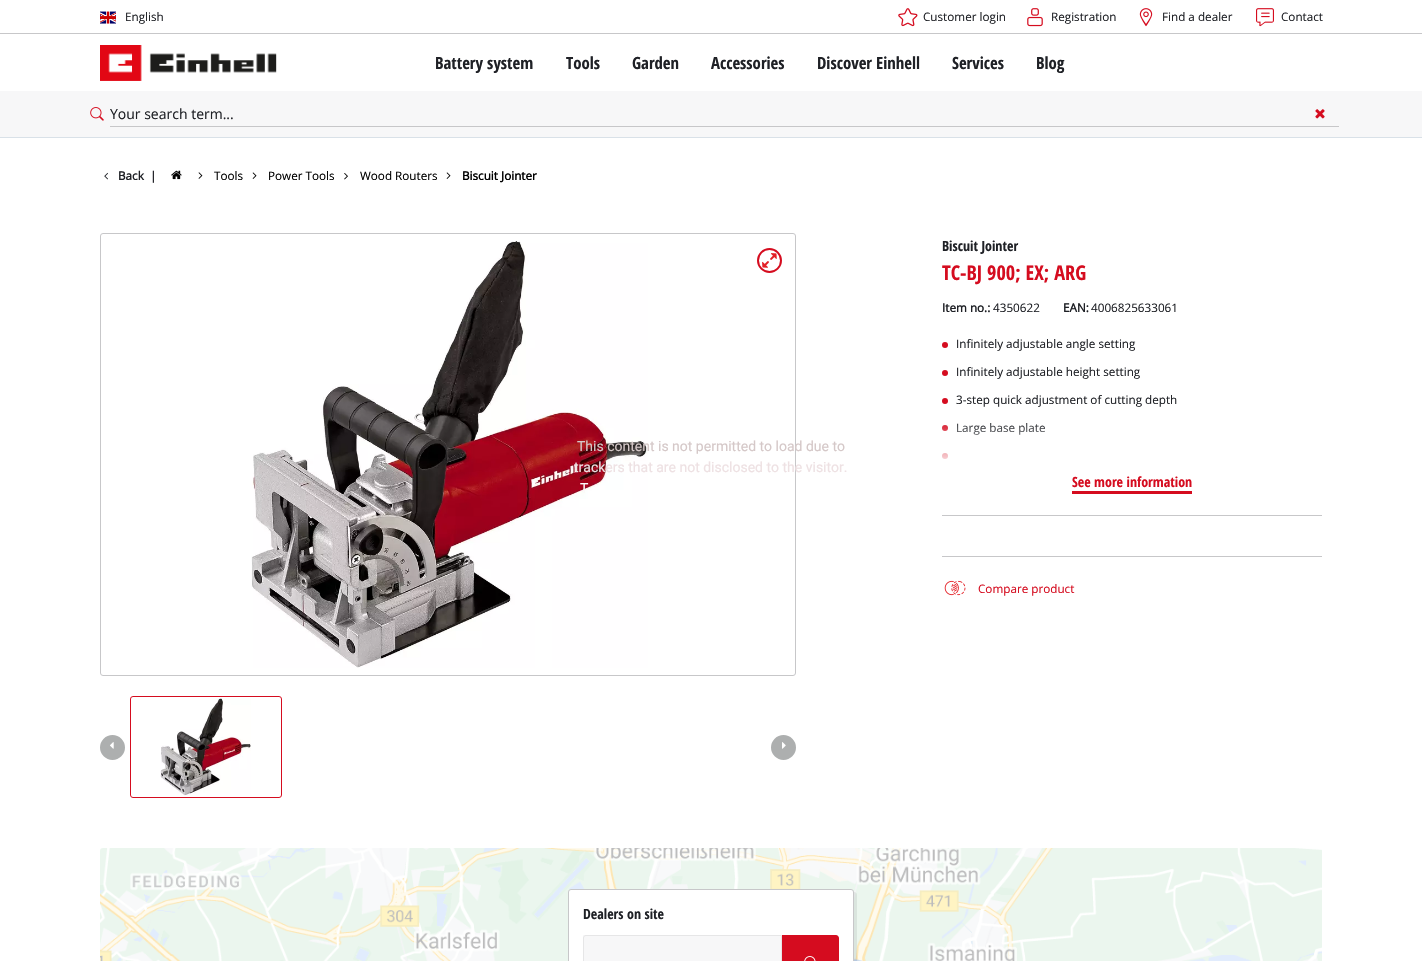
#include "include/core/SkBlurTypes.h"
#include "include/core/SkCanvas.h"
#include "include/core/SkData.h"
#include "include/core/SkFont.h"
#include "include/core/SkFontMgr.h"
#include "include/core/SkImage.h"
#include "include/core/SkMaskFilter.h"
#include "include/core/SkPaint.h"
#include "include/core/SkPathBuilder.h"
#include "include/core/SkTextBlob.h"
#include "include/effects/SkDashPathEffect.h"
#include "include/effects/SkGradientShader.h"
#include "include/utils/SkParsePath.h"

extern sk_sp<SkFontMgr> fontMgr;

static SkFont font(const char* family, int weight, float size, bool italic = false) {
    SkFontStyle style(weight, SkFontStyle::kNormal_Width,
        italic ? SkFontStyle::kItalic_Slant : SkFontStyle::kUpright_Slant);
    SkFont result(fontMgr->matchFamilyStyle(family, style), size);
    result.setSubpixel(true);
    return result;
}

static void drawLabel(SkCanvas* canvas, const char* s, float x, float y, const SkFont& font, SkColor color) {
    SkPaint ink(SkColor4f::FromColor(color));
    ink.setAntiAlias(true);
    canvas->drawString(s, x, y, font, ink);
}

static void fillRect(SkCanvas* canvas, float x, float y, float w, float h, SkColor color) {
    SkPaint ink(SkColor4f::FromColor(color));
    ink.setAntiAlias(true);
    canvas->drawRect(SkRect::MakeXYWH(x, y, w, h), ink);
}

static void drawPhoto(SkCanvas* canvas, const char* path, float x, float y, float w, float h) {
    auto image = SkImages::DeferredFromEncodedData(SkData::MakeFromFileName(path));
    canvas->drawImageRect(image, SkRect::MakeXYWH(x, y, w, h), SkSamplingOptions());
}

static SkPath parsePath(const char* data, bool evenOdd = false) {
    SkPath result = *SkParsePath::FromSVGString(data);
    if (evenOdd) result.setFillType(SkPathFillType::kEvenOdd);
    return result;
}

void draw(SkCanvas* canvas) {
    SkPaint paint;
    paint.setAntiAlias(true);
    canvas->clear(0xFFFFFFFF);
    fillRect(canvas, 0, 33, 1422, 1, 0xFFC7C7C9);
    drawPhoto(canvas, "assets/img1.png", 100, 11, 16, 13);
    SkFont font1 = font("Open Sans", 400, 11.7f);
    drawLabel(canvas, "English", 125, 21, font1, 0xFF1F2126);
    drawPhoto(canvas, "assets/img2.png", 898, 8, 20, 19);
    drawLabel(canvas, "Customer login", 923, 21, font1, 0xFF1F2126);
    drawPhoto(canvas, "assets/img3.png", 1027, 8, 16, 19);
    drawLabel(canvas, "Registration", 1051, 21, font1, 0xFF1F2126);
    drawPhoto(canvas, "assets/img4.png", 1139, 8, 14, 19);
    drawLabel(canvas, "Find a dealer", 1162, 21, font1, 0xFF1F2126);
    drawPhoto(canvas, "assets/img5.png", 1256, 8, 18, 19);
    drawLabel(canvas, "Contact", 1281, 21, font1, 0xFF1F2126);
    fillRect(canvas, 0, 137, 1422, 1, 0xFFD9E1E8);
    drawPhoto(canvas, "assets/img6.png", 100, 45, 177, 36);
    SkFont font2 = font("Open Sans Condensed", 700, 16.75f);
    drawLabel(canvas, "Battery system", 435, 69, font2, 0xFF1F2126);
    drawLabel(canvas, "Tools", 566, 69, font2, 0xFF1F2126);
    drawLabel(canvas, "Garden", 632, 69, font2, 0xFF1F2126);
    drawLabel(canvas, "Accessories", 711, 69, font2, 0xFF1F2126);
    drawLabel(canvas, "Discover Einhell", 817, 69, font2, 0xFF1F2126);
    drawLabel(canvas, "Services", 952, 69, font2, 0xFF1F2126);
    drawLabel(canvas, "Blog", 1036, 69, font2, 0xFF1F2126);
    fillRect(canvas, 0, 91, 1422, 46, 0xFFF7F7F8);
    drawPhoto(canvas, "assets/img7.png", 90, 107, 14, 14);
    fillRect(canvas, 110, 126, 1229, 1, 0xFFC7C7C9);
    SkFont font3 = font("Open Sans", 400, 14);
    drawLabel(canvas, "Your search term...", 110, 119, font3, 0xFF1F2126);
    drawPhoto(canvas, "assets/img8.png", 1315, 109, 10, 10);
    drawPhoto(canvas, "assets/img9.png", 104, 172, 4, 8);
    SkFont font4 = font("Open Sans", 700, 11.7f);
    drawLabel(canvas, "Back", 118, 180, font4, 0xFF1F2126);
    drawLabel(canvas, "|", 150, 180, font4, 0xFF1F2126);
    drawPhoto(canvas, "assets/img10.png", 171, 170, 11, 10);
    drawPhoto(canvas, "assets/img11.png", 198, 172, 5, 7);
    drawLabel(canvas, "Tools", 214, 180, font1, 0xFF000000);
    drawPhoto(canvas, "assets/img12.png", 252, 172, 5, 7);
    drawLabel(canvas, "Power Tools", 268, 180, font1, 0xFF000000);
    drawPhoto(canvas, "assets/img13.png", 344, 173, 4, 7);
    drawLabel(canvas, "Wood Routers", 360, 180, font1, 0xFF000000);
    drawPhoto(canvas, "assets/img14.png", 446, 172, 5, 7);
    drawLabel(canvas, "Biscuit Jointer", 462, 180, font4, 0xFF000000);
    paint.setStroke(true);
    paint.setStrokeWidth(1);
    paint.setColor(0xFFC7C7C9);
    canvas->drawRoundRect(SkRect::MakeXYWH(100.5f, 233.5f, 695, 442), 2.5f, 2.5f, paint);
    drawPhoto(canvas, "assets/img17.png", 251, 241, 397, 427);
    SkFont font5 = font("Roboto", 400, 14);
    drawLabel(canvas, "This content is not permitted to load due to", 577, 451, font5, 0xFFD5C8C8);
    drawLabel(canvas, "trackers that are not disclosed to the visitor.", 574, 472, font5, 0xFFEEE1E3);
    drawLabel(canvas, "T", 580, 493, font5, 0xFFFCF9F9);
    drawPhoto(canvas, "assets/img15.png", 100, 848, 1222, 113);
    paint.setStroke(false);
    paint.setColor(0x141F2126);
    canvas->drawPath(parsePath("M571 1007C571 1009 572 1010 574 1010H854C856 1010 857 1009 857 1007V895C857 893 856 892 854 892V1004C854 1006 853 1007 851 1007Z"), paint);
    paint.setColor(0xFFFFFFFF);
    canvas->drawRoundRect(SkRect::MakeXYWH(568.5f, 889.5f, 285, 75), 2.5f, 2.5f, paint);
    paint.setStroke(true);
    paint.setColor(0xFFC7C7C9);
    canvas->drawRoundRect(SkRect::MakeXYWH(568.5f, 889.5f, 285, 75), 2.5f, 2.5f, paint);
    SkFont font6 = font("Open Sans Condensed", 700, 14);
    drawLabel(canvas, "Dealers on site", 583, 919, font6, 0xFF1F2126);
    fillRect(canvas, 583, 935, 198, 26, 0xFFF7F7F8);
    paint.setColor(0xFFE6E6E7);
    canvas->drawPath(parsePath("M586 935.5H781.5V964.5H586C584.5 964.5 583.5 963.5 583.5 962V938C583.5 936.5 584.5 935.5 586 935.5Z"), paint);
    paint.setStroke(false);
    paint.setColor(0xFFD50C1F);
    canvas->drawPath(parsePath("M782 935H836C837.5 935 839 936.5 839 938V961C839 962.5 837.5 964 836 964H782Z"), paint);
    drawPhoto(canvas, "assets/img16.png", 804, 956, 12, 5);
    paint.setStroke(true);
    paint.setStrokeWidth(2);
    canvas->drawCircle(769.5f, 260.5f, 11.5f, paint);
    drawPhoto(canvas, "assets/img18.png", 762, 253, 15, 15);
    paint.setStroke(false);
    paint.setColor(0xFFADAFAF);
    canvas->drawCircle(112.5f, 747.5f, 11.5f, paint);
    paint.setStroke(true);
    canvas->drawCircle(112.5f, 747.5f, 11.5f, paint);
    drawPhoto(canvas, "assets/img19.png", 110, 742, 4, 7);
    paint.setStrokeWidth(1);
    paint.setColor(0xFFD50C1F);
    canvas->drawRoundRect(SkRect::MakeXYWH(130.5f, 696.5f, 151, 101), 2.5f, 2.5f, paint);
    drawPhoto(canvas, "assets/img20.png", 160, 698, 91, 98);
    paint.setStroke(false);
    paint.setColor(0xFFADAFAF);
    canvas->drawCircle(783.5f, 747.5f, 11.5f, paint);
    paint.setStroke(true);
    paint.setStrokeWidth(2);
    canvas->drawCircle(783.5f, 747.5f, 11.5f, paint);
    drawPhoto(canvas, "assets/img21.png", 782, 742, 4, 7);
    drawLabel(canvas, "Biscuit Jointer", 942, 251, font6, 0xFF1F2126);
    SkFont font7 = font("Open Sans Condensed", 700, 20.25f);
    drawLabel(canvas, "TC-BJ 900; EX; ARG", 942, 280, font7, 0xFFD50C1F);
    drawLabel(canvas, "Item no.:", 942, 312, font4, 0xFF1F2126);
    drawLabel(canvas, "4350622", 993, 312, font1, 0xFF1F2126);
    drawLabel(canvas, "EAN:", 1063, 312, font4, 0xFF1F2126);
    drawLabel(canvas, "4006825633061", 1091, 312, font1, 0xFF1F2126);
    paint.setStroke(false);
    paint.setColor(0xFFD50C1F);
    canvas->drawCircle(945, 345, 3, paint);
    drawLabel(canvas, "Infinitely adjustable angle setting", 956, 348, font1, 0xFF1F2126);
    canvas->drawCircle(945, 373, 3, paint);
    drawLabel(canvas, "Infinitely adjustable height setting", 956, 376, font1, 0xFF1F2126);
    canvas->drawCircle(945, 401, 3, paint);
    drawLabel(canvas, "3-step quick adjustment of cutting depth", 956, 404, font1, 0xFF1F2126);
    canvas->drawCircle(945, 428, 3, paint);
    drawLabel(canvas, "Large base plate", 956, 432, font1, 0xFF1F2126);
    canvas->drawCircle(945, 456, 3, paint);
    {
        const SkColor colors[] = {0x00FFFFFF, 0xFFFFFFFF};
        const float stops[] = {0, 1};
        const SkPoint ends[] = {{1132, 419}, {1132, 469}};
        paint.setShader(SkGradientShader::MakeLinear(ends, colors, stops, 2, SkTileMode::kClamp));
        paint.setAlpha(255);
    }
    canvas->drawRect(SkRect::MakeXYWH(942, 423, 103, 36), paint);
    drawLabel(canvas, "See more information", 1072, 487, font6, 0xFFD50C1F);
    fillRect(canvas, 1072, 491, 120, 3, 0xFFD50C1F);
    fillRect(canvas, 942, 515, 380, 1, 0xFFC7C7C9);
    fillRect(canvas, 942, 556, 380, 1, 0xFFC7C7C9);
    drawPhoto(canvas, "assets/img22.png", 944, 580, 22, 16);
    drawLabel(canvas, "Compare product", 978, 593, font1, 0xFFD50C1F);
}
